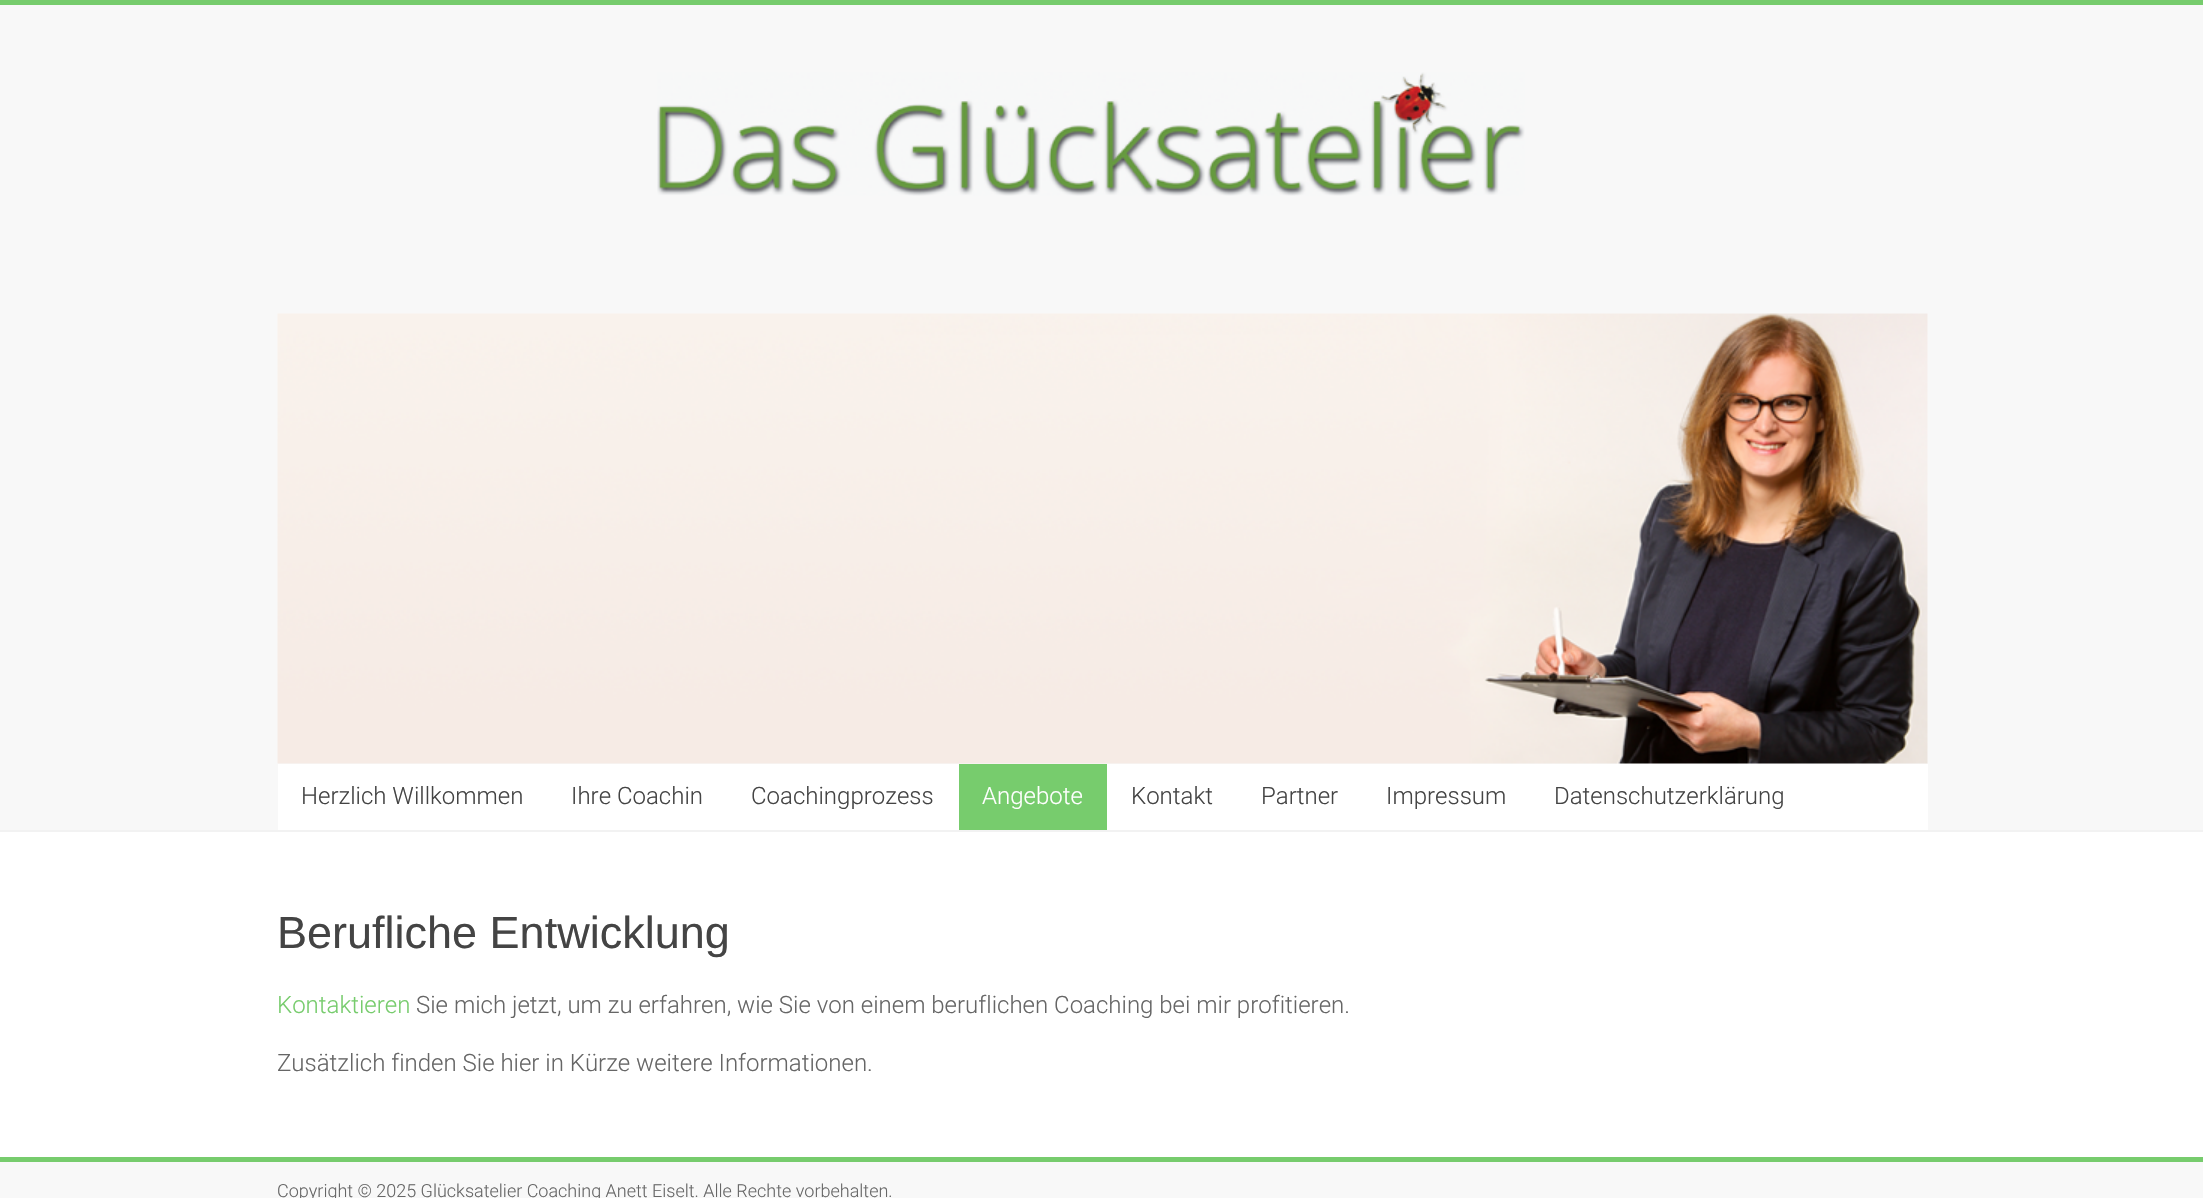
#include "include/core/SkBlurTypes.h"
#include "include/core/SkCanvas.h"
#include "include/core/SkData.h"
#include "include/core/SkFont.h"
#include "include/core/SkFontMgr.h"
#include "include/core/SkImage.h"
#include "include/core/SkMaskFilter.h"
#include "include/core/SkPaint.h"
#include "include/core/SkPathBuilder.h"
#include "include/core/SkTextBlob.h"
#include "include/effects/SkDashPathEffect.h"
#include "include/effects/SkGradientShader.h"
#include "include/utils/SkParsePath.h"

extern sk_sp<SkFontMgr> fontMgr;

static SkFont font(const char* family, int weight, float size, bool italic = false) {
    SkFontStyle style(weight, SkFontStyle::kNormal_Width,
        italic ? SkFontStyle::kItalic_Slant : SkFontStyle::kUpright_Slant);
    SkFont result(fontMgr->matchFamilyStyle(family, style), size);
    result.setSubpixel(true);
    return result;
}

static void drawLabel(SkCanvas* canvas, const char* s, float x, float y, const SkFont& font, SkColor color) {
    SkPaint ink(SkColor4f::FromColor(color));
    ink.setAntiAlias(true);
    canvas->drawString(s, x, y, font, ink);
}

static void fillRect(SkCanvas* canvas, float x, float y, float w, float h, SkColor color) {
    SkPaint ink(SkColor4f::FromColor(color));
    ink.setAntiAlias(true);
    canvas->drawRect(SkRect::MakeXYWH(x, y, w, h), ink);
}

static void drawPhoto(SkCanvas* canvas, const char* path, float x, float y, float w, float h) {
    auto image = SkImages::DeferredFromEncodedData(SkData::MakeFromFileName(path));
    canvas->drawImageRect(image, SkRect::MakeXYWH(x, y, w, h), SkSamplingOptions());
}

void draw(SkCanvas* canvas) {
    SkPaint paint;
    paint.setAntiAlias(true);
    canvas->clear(0xFFFFFFFF);
    fillRect(canvas, 0, 0, 2203, 5, 0xFF77CC6D);
    fillRect(canvas, 0, 5, 2203, 825, 0xFFF8F8F8);
    fillRect(canvas, 0, 830, 2203, 2, 0xFFF2F2F2);
    drawPhoto(canvas, "assets/img1.png", 657, 72, 868, 124);
    drawPhoto(canvas, "assets/img2.png", 277, 313, 1651, 451);
    fillRect(canvas, 278, 764, 1650, 66, 0xFFFFFFFF);
    SkFont font1 = font("Roboto", 300, 24);
    drawLabel(canvas, "Herzlich Willkommen", 301, 804, font1, 0xFF444444);
    drawLabel(canvas, "Ihre Coachin", 571, 804, font1, 0xFF444444);
    drawLabel(canvas, "Coachingprozess", 751, 804, font1, 0xFF444444);
    fillRect(canvas, 959, 764, 148, 66, 0xFF77CC6D);
    drawLabel(canvas, "Angebote", 982, 804, font1, 0xFFFFFFFF);
    drawLabel(canvas, "Kontakt", 1131, 804, font1, 0xFF444444);
    drawLabel(canvas, "Partner", 1261, 804, font1, 0xFF444444);
    drawLabel(canvas, "Impressum", 1386, 804, font1, 0xFF444444);
    drawLabel(canvas, "Datenschutzerklärung", 1554, 804, font1, 0xFF444444);
    SkFont font2 = font("Liberation Sans", 400, 45);
    drawLabel(canvas, "Berufliche Entwicklung", 277, 948, font2, 0xFF444444);
    drawLabel(canvas, "Kontaktieren", 277, 1013, font1, 0xFF77CC6D);
    drawLabel(canvas, "Sie mich jetzt, um zu erfahren, wie Sie von einem beruflichen Coaching bei mir profitieren.", 416, 1013, font1, 0xFF666666);
    drawLabel(canvas, "Zusätzlich finden Sie hier in Kürze weitere Informationen.", 277, 1071, font1, 0xFF666666);
    fillRect(canvas, 0, 1162, 2203, 36, 0xFFF8F8F8);
    fillRect(canvas, 0, 1157, 2203, 5, 0xFF77CC6D);
    SkFont font3 = font("Roboto", 300, 18);
    drawLabel(canvas, "Copyright © 2025 Glücksatelier Coaching Anett Eiselt. Alle Rechte vorbehalten.", 277, 1197, font3, 0xFF666666);
}
